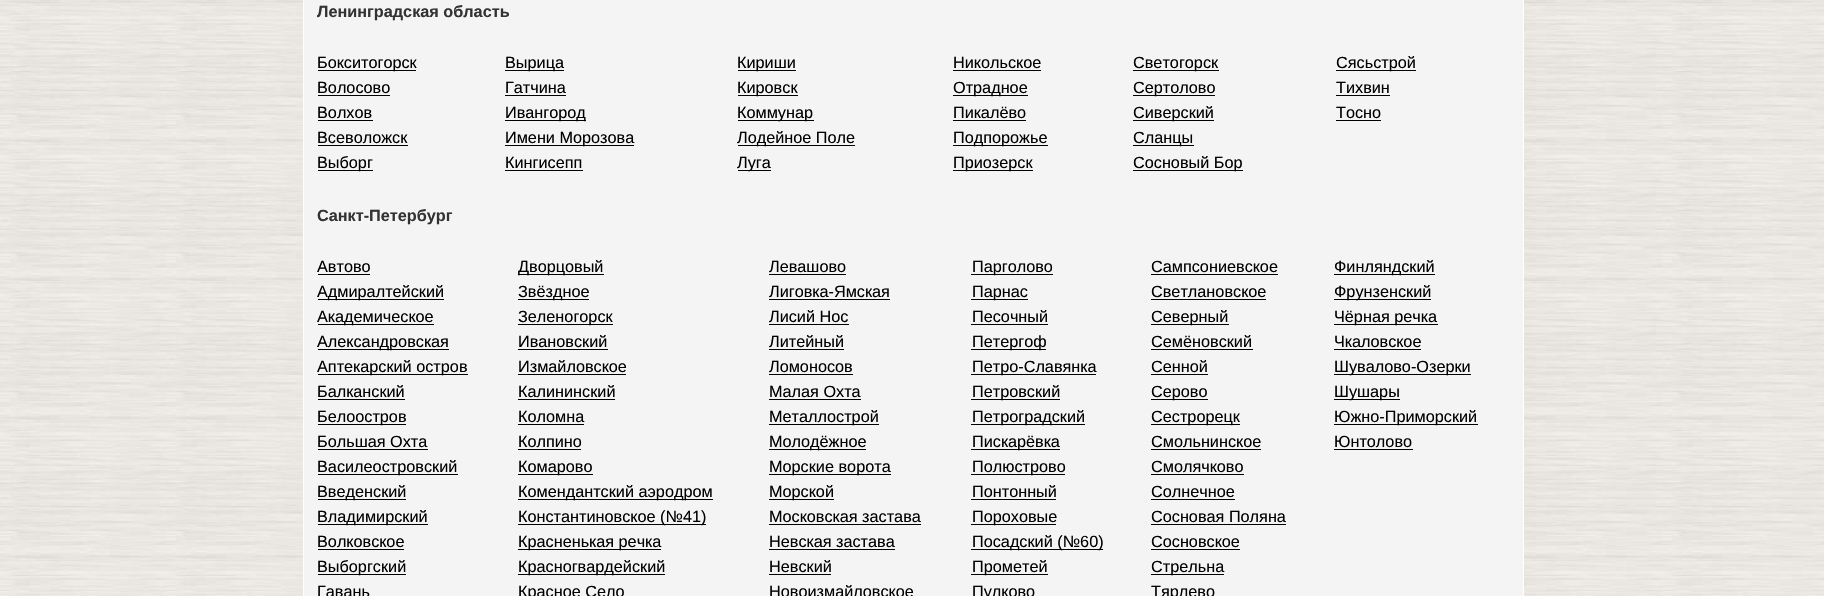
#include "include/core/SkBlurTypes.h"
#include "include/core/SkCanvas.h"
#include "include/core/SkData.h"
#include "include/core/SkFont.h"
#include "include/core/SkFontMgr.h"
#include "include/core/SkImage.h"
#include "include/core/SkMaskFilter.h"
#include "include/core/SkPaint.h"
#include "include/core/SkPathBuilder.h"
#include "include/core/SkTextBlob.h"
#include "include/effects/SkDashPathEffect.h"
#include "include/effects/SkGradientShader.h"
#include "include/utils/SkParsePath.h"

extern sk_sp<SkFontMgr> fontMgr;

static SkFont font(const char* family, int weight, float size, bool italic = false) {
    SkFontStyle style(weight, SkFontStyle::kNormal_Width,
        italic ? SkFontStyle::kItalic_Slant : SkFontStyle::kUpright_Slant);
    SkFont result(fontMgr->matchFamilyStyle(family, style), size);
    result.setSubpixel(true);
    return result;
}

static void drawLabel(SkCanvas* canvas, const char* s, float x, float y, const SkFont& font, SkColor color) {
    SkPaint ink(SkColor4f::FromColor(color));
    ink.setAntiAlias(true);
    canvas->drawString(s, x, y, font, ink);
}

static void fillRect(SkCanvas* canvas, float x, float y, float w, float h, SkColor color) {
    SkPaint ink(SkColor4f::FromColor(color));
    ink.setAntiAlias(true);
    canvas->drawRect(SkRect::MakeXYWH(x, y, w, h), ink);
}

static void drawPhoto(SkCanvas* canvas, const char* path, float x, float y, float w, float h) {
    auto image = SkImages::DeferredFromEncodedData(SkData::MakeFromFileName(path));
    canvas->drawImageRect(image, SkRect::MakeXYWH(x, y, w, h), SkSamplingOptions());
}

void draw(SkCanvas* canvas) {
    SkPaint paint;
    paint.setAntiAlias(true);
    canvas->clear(0xFFFFFFFF);
    drawPhoto(canvas, "assets/img1.png", 0, 0, 1824, 596);
    fillRect(canvas, 303, 0, 1221, 596, 0xFFFFFFFF);
    fillRect(canvas, 304, 0, 1219, 596, 0xFFF4F4F4);
    SkFont font1 = font("Liberation Sans", 700, 16.25f);
    drawLabel(canvas, "Ленинградская область", 317, 17, font1, 0xFF333333);
    fillRect(canvas, 318, 70, 98, 1, 0xFF000000);
    SkFont font2 = font("Liberation Sans", 400, 16.25f);
    drawLabel(canvas, "Бокситогорск", 317, 68, font2, 0xFF000000);
    drawLabel(canvas, "Волосово", 317, 93, font2, 0xFF000000);
    fillRect(canvas, 318, 95, 72, 1, 0xFF000000);
    drawLabel(canvas, "Волхов", 317, 118, font2, 0xFF000000);
    fillRect(canvas, 318, 120, 55, 1, 0xFF000000);
    drawLabel(canvas, "Всеволожск", 317, 143, font2, 0xFF000000);
    fillRect(canvas, 318, 145, 90, 1, 0xFF000000);
    fillRect(canvas, 318, 170, 55, 1, 0xFF000000);
    drawLabel(canvas, "Выборг", 317, 168, font2, 0xFF000000);
    fillRect(canvas, 505, 70, 59, 1, 0xFF000000);
    drawLabel(canvas, "Вырица", 505, 68, font2, 0xFF000000);
    drawLabel(canvas, "Гатчина", 505, 93, font2, 0xFF000000);
    fillRect(canvas, 505, 95, 61, 1, 0xFF000000);
    fillRect(canvas, 505, 120, 81, 1, 0xFF000000);
    drawLabel(canvas, "Ивангород", 505, 118, font2, 0xFF000000);
    fillRect(canvas, 505, 145, 129, 1, 0xFF000000);
    drawLabel(canvas, "Имени Морозова", 505, 143, font2, 0xFF000000);
    drawLabel(canvas, "Кингисепп", 505, 168, font2, 0xFF000000);
    fillRect(canvas, 505, 170, 78, 1, 0xFF000000);
    fillRect(canvas, 738, 70, 58, 1, 0xFF000000);
    drawLabel(canvas, "Кириши", 737, 68, font2, 0xFF000000);
    fillRect(canvas, 738, 95, 60, 1, 0xFF000000);
    drawLabel(canvas, "Кировск", 737, 93, font2, 0xFF000000);
    fillRect(canvas, 738, 120, 76, 1, 0xFF000000);
    drawLabel(canvas, "Коммунар", 737, 118, font2, 0xFF000000);
    fillRect(canvas, 738, 145, 117, 1, 0xFF000000);
    drawLabel(canvas, "Лодейное Поле", 737, 143, font2, 0xFF000000);
    fillRect(canvas, 738, 170, 33, 1, 0xFF000000);
    drawLabel(canvas, "Луга", 737, 168, font2, 0xFF000000);
    drawLabel(canvas, "Никольское", 953, 68, font2, 0xFF000000);
    fillRect(canvas, 953, 70, 88, 1, 0xFF000000);
    fillRect(canvas, 953, 95, 75, 1, 0xFF000000);
    drawLabel(canvas, "Отрадное", 953, 93, font2, 0xFF000000);
    drawLabel(canvas, "Пикалёво", 953, 118, font2, 0xFF000000);
    fillRect(canvas, 953, 120, 73, 1, 0xFF000000);
    fillRect(canvas, 953, 145, 95, 1, 0xFF000000);
    drawLabel(canvas, "Подпорожье", 953, 143, font2, 0xFF000000);
    fillRect(canvas, 953, 170, 80, 1, 0xFF000000);
    drawLabel(canvas, "Приозерск", 953, 168, font2, 0xFF000000);
    fillRect(canvas, 1133, 70, 86, 1, 0xFF000000);
    drawLabel(canvas, "Светогорск", 1133, 68, font2, 0xFF000000);
    fillRect(canvas, 1133, 95, 82, 1, 0xFF000000);
    drawLabel(canvas, "Сертолово", 1133, 93, font2, 0xFF000000);
    fillRect(canvas, 1133, 120, 81, 1, 0xFF000000);
    drawLabel(canvas, "Сиверский", 1133, 118, font2, 0xFF000000);
    fillRect(canvas, 1133, 145, 61, 1, 0xFF000000);
    drawLabel(canvas, "Сланцы", 1133, 143, font2, 0xFF000000);
    fillRect(canvas, 1133, 170, 110, 1, 0xFF000000);
    drawLabel(canvas, "Сосновый Бор", 1133, 168, font2, 0xFF000000);
    fillRect(canvas, 1336, 70, 80, 1, 0xFF000000);
    drawLabel(canvas, "Сясьстрой", 1336, 68, font2, 0xFF000000);
    drawLabel(canvas, "Тихвин", 1336, 93, font2, 0xFF000000);
    fillRect(canvas, 1336, 95, 54, 1, 0xFF000000);
    drawLabel(canvas, "Тосно", 1336, 118, font2, 0xFF000000);
    fillRect(canvas, 1336, 120, 45, 1, 0xFF000000);
    drawLabel(canvas, "Санкт-Петербург", 317, 221, font1, 0xFF333333);
    drawLabel(canvas, "Автово", 317, 272, font2, 0xFF000000);
    fillRect(canvas, 318, 274, 52, 1, 0xFF000000);
    fillRect(canvas, 318, 299, 126, 1, 0xFF000000);
    drawLabel(canvas, "Адмиралтейский", 317, 297, font2, 0xFF000000);
    fillRect(canvas, 318, 324, 116, 1, 0xFF000000);
    drawLabel(canvas, "Академическое", 317, 322, font2, 0xFF000000);
    fillRect(canvas, 318, 349, 131, 1, 0xFF000000);
    drawLabel(canvas, "Александровская", 317, 347, font2, 0xFF000000);
    fillRect(canvas, 318, 374, 150, 1, 0xFF000000);
    drawLabel(canvas, "Аптекарский остров", 317, 372, font2, 0xFF000000);
    drawLabel(canvas, "Балканский", 317, 397, font2, 0xFF000000);
    fillRect(canvas, 318, 399, 87, 1, 0xFF000000);
    fillRect(canvas, 318, 424, 88, 1, 0xFF000000);
    drawLabel(canvas, "Белоостров", 317, 422, font2, 0xFF000000);
    drawLabel(canvas, "Большая Охта", 317, 447, font2, 0xFF000000);
    fillRect(canvas, 318, 449, 110, 1, 0xFF000000);
    fillRect(canvas, 318, 474, 140, 1, 0xFF000000);
    drawLabel(canvas, "Василеостровский", 317, 472, font2, 0xFF000000);
    fillRect(canvas, 318, 499, 88, 1, 0xFF000000);
    drawLabel(canvas, "Введенский", 317, 497, font2, 0xFF000000);
    fillRect(canvas, 318, 524, 110, 1, 0xFF000000);
    drawLabel(canvas, "Владимирский", 317, 522, font2, 0xFF000000);
    drawLabel(canvas, "Волковское", 317, 547, font2, 0xFF000000);
    fillRect(canvas, 318, 549, 86, 1, 0xFF000000);
    fillRect(canvas, 318, 574, 88, 1, 0xFF000000);
    drawLabel(canvas, "Выборгский", 317, 572, font2, 0xFF000000);
    drawLabel(canvas, "Гавань", 317, 597, font2, 0xFF000000);
    fillRect(canvas, 518, 274, 86, 1, 0xFF000000);
    drawLabel(canvas, "Дворцовый", 518, 272, font2, 0xFF000000);
    fillRect(canvas, 518, 299, 71, 1, 0xFF000000);
    drawLabel(canvas, "Звёздное", 518, 297, font2, 0xFF000000);
    fillRect(canvas, 518, 324, 95, 1, 0xFF000000);
    drawLabel(canvas, "Зеленогорск", 518, 322, font2, 0xFF000000);
    drawLabel(canvas, "Ивановский", 518, 347, font2, 0xFF000000);
    fillRect(canvas, 518, 349, 90, 1, 0xFF000000);
    drawLabel(canvas, "Измайловское", 518, 372, font2, 0xFF000000);
    fillRect(canvas, 518, 374, 108, 1, 0xFF000000);
    drawLabel(canvas, "Калининский", 518, 397, font2, 0xFF000000);
    fillRect(canvas, 518, 399, 97, 1, 0xFF000000);
    drawLabel(canvas, "Коломна", 518, 422, font2, 0xFF000000);
    fillRect(canvas, 518, 424, 66, 1, 0xFF000000);
    drawLabel(canvas, "Колпино", 518, 447, font2, 0xFF000000);
    fillRect(canvas, 518, 449, 63, 1, 0xFF000000);
    fillRect(canvas, 518, 474, 75, 1, 0xFF000000);
    drawLabel(canvas, "Комарово", 518, 472, font2, 0xFF000000);
    fillRect(canvas, 518, 499, 195, 1, 0xFF000000);
    drawLabel(canvas, "Комендантский аэродром", 518, 497, font2, 0xFF000000);
    fillRect(canvas, 518, 524, 188, 1, 0xFF000000);
    drawLabel(canvas, "Константиновское (№41)", 518, 522, font2, 0xFF000000);
    fillRect(canvas, 518, 549, 143, 1, 0xFF000000);
    drawLabel(canvas, "Красненькая речка", 518, 547, font2, 0xFF000000);
    fillRect(canvas, 518, 574, 147, 1, 0xFF000000);
    drawLabel(canvas, "Красногвардейский", 518, 572, font2, 0xFF000000);
    drawLabel(canvas, "Красное Село", 518, 597, font2, 0xFF000000);
    drawLabel(canvas, "Левашово", 769, 272, font2, 0xFF000000);
    fillRect(canvas, 769, 274, 77, 1, 0xFF000000);
    drawLabel(canvas, "Лиговка-Ямская", 769, 297, font2, 0xFF000000);
    fillRect(canvas, 769, 299, 121, 1, 0xFF000000);
    drawLabel(canvas, "Лисий Нос", 769, 322, font2, 0xFF000000);
    fillRect(canvas, 769, 324, 80, 1, 0xFF000000);
    drawLabel(canvas, "Литейный", 769, 347, font2, 0xFF000000);
    fillRect(canvas, 769, 349, 75, 1, 0xFF000000);
    drawLabel(canvas, "Ломоносов", 769, 372, font2, 0xFF000000);
    fillRect(canvas, 769, 374, 84, 1, 0xFF000000);
    drawLabel(canvas, "Малая Охта", 769, 397, font2, 0xFF000000);
    fillRect(canvas, 769, 399, 92, 1, 0xFF000000);
    fillRect(canvas, 769, 424, 110, 1, 0xFF000000);
    drawLabel(canvas, "Металлострой", 769, 422, font2, 0xFF000000);
    fillRect(canvas, 769, 449, 97, 1, 0xFF000000);
    drawLabel(canvas, "Молодёжное", 769, 447, font2, 0xFF000000);
    fillRect(canvas, 769, 474, 122, 1, 0xFF000000);
    drawLabel(canvas, "Морские ворота", 769, 472, font2, 0xFF000000);
    fillRect(canvas, 769, 499, 65, 1, 0xFF000000);
    drawLabel(canvas, "Морской", 769, 497, font2, 0xFF000000);
    drawLabel(canvas, "Московская застава", 769, 522, font2, 0xFF000000);
    fillRect(canvas, 769, 524, 152, 1, 0xFF000000);
    drawLabel(canvas, "Невская застава", 769, 547, font2, 0xFF000000);
    fillRect(canvas, 769, 549, 126, 1, 0xFF000000);
    drawLabel(canvas, "Невский", 769, 572, font2, 0xFF000000);
    fillRect(canvas, 769, 574, 62, 1, 0xFF000000);
    drawLabel(canvas, "Новоизмайловское", 769, 597, font2, 0xFF000000);
    fillRect(canvas, 971, 274, 82, 1, 0xFF000000);
    drawLabel(canvas, "Парголово", 972, 272, font2, 0xFF000000);
    fillRect(canvas, 971, 299, 57, 1, 0xFF000000);
    drawLabel(canvas, "Парнас", 972, 297, font2, 0xFF000000);
    drawLabel(canvas, "Песочный", 972, 322, font2, 0xFF000000);
    fillRect(canvas, 971, 324, 77, 1, 0xFF000000);
    fillRect(canvas, 971, 349, 75, 1, 0xFF000000);
    drawLabel(canvas, "Петергоф", 972, 347, font2, 0xFF000000);
    fillRect(canvas, 971, 374, 125, 1, 0xFF000000);
    drawLabel(canvas, "Петро-Славянка", 972, 372, font2, 0xFF000000);
    fillRect(canvas, 971, 399, 89, 1, 0xFF000000);
    drawLabel(canvas, "Петровский", 972, 397, font2, 0xFF000000);
    fillRect(canvas, 971, 424, 114, 1, 0xFF000000);
    drawLabel(canvas, "Петроградский", 972, 422, font2, 0xFF000000);
    fillRect(canvas, 971, 449, 89, 1, 0xFF000000);
    drawLabel(canvas, "Пискарёвка", 972, 447, font2, 0xFF000000);
    fillRect(canvas, 971, 474, 94, 1, 0xFF000000);
    drawLabel(canvas, "Полюстрово", 972, 472, font2, 0xFF000000);
    drawLabel(canvas, "Понтонный", 972, 497, font2, 0xFF000000);
    fillRect(canvas, 971, 499, 85, 1, 0xFF000000);
    fillRect(canvas, 971, 524, 85, 1, 0xFF000000);
    drawLabel(canvas, "Пороховые", 972, 522, font2, 0xFF000000);
    fillRect(canvas, 971, 549, 132, 1, 0xFF000000);
    drawLabel(canvas, "Посадский (№60)", 972, 547, font2, 0xFF000000);
    fillRect(canvas, 971, 574, 77, 1, 0xFF000000);
    drawLabel(canvas, "Прометей", 972, 572, font2, 0xFF000000);
    drawLabel(canvas, "Пулково", 972, 597, font2, 0xFF000000);
    drawLabel(canvas, "Сампсониевское", 1151, 272, font2, 0xFF000000);
    fillRect(canvas, 1151, 274, 127, 1, 0xFF000000);
    drawLabel(canvas, "Светлановское", 1151, 297, font2, 0xFF000000);
    fillRect(canvas, 1151, 299, 115, 1, 0xFF000000);
    fillRect(canvas, 1151, 324, 78, 1, 0xFF000000);
    drawLabel(canvas, "Северный", 1151, 322, font2, 0xFF000000);
    drawLabel(canvas, "Семёновский", 1151, 347, font2, 0xFF000000);
    fillRect(canvas, 1151, 349, 102, 1, 0xFF000000);
    drawLabel(canvas, "Сенной", 1151, 372, font2, 0xFF000000);
    fillRect(canvas, 1151, 374, 57, 1, 0xFF000000);
    fillRect(canvas, 1151, 399, 57, 1, 0xFF000000);
    drawLabel(canvas, "Серово", 1151, 397, font2, 0xFF000000);
    fillRect(canvas, 1151, 424, 89, 1, 0xFF000000);
    drawLabel(canvas, "Сестрорецк", 1151, 422, font2, 0xFF000000);
    drawLabel(canvas, "Смольнинское", 1151, 447, font2, 0xFF000000);
    fillRect(canvas, 1151, 449, 110, 1, 0xFF000000);
    drawLabel(canvas, "Смолячково", 1151, 472, font2, 0xFF000000);
    fillRect(canvas, 1151, 474, 93, 1, 0xFF000000);
    drawLabel(canvas, "Солнечное", 1151, 497, font2, 0xFF000000);
    fillRect(canvas, 1151, 499, 84, 1, 0xFF000000);
    drawLabel(canvas, "Сосновая Поляна", 1151, 522, font2, 0xFF000000);
    fillRect(canvas, 1151, 524, 135, 1, 0xFF000000);
    drawLabel(canvas, "Сосновское", 1151, 547, font2, 0xFF000000);
    fillRect(canvas, 1151, 549, 89, 1, 0xFF000000);
    fillRect(canvas, 1151, 574, 73, 1, 0xFF000000);
    drawLabel(canvas, "Стрельна", 1151, 572, font2, 0xFF000000);
    drawLabel(canvas, "Тярлево", 1151, 597, font2, 0xFF000000);
    fillRect(canvas, 1334, 274, 101, 1, 0xFF000000);
    drawLabel(canvas, "Финляндский", 1334, 272, font2, 0xFF000000);
    fillRect(canvas, 1334, 299, 97, 1, 0xFF000000);
    drawLabel(canvas, "Фрунзенский", 1334, 297, font2, 0xFF000000);
    fillRect(canvas, 1334, 324, 104, 1, 0xFF000000);
    drawLabel(canvas, "Чёрная речка", 1334, 322, font2, 0xFF000000);
    drawLabel(canvas, "Чкаловское", 1334, 347, font2, 0xFF000000);
    fillRect(canvas, 1334, 349, 87, 1, 0xFF000000);
    fillRect(canvas, 1334, 374, 137, 1, 0xFF000000);
    drawLabel(canvas, "Шувалово-Озерки", 1334, 372, font2, 0xFF000000);
    fillRect(canvas, 1334, 399, 66, 1, 0xFF000000);
    drawLabel(canvas, "Шушары", 1334, 397, font2, 0xFF000000);
    fillRect(canvas, 1334, 424, 144, 1, 0xFF000000);
    drawLabel(canvas, "Южно-Приморский", 1334, 422, font2, 0xFF000000);
    drawLabel(canvas, "Юнтолово", 1334, 447, font2, 0xFF000000);
    fillRect(canvas, 1334, 449, 79, 1, 0xFF000000);
}
